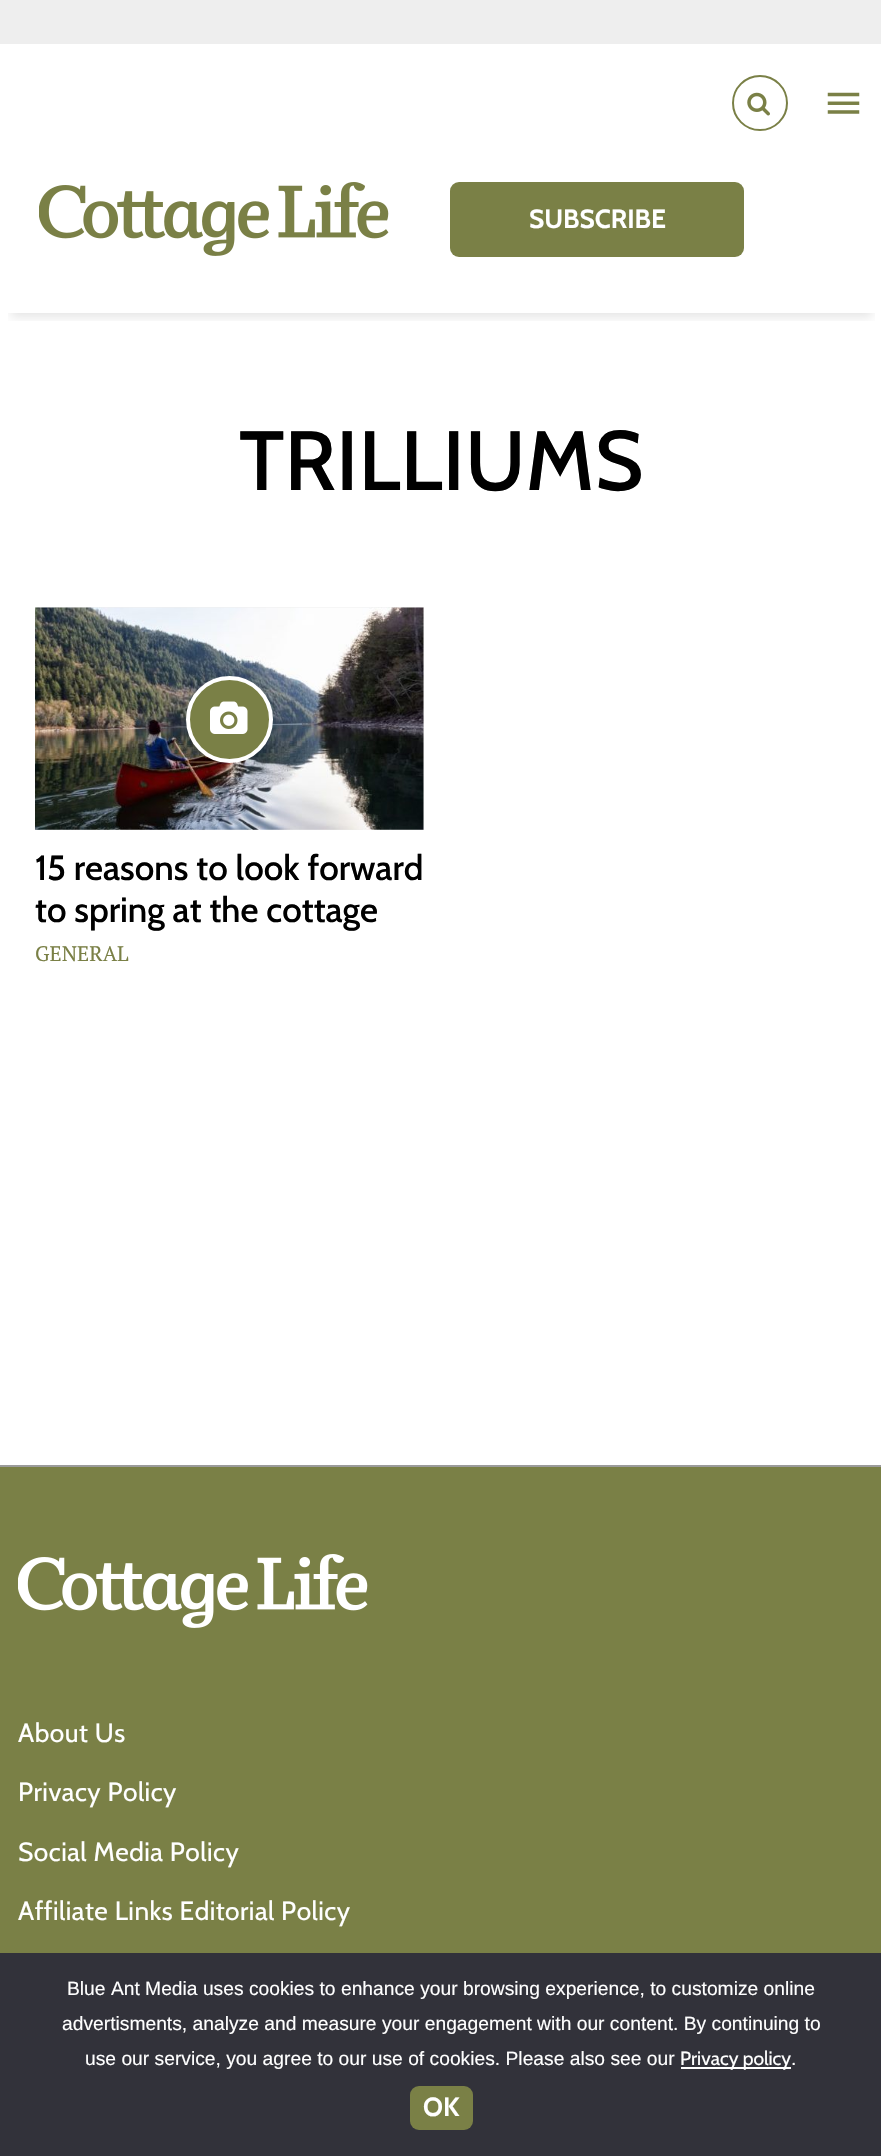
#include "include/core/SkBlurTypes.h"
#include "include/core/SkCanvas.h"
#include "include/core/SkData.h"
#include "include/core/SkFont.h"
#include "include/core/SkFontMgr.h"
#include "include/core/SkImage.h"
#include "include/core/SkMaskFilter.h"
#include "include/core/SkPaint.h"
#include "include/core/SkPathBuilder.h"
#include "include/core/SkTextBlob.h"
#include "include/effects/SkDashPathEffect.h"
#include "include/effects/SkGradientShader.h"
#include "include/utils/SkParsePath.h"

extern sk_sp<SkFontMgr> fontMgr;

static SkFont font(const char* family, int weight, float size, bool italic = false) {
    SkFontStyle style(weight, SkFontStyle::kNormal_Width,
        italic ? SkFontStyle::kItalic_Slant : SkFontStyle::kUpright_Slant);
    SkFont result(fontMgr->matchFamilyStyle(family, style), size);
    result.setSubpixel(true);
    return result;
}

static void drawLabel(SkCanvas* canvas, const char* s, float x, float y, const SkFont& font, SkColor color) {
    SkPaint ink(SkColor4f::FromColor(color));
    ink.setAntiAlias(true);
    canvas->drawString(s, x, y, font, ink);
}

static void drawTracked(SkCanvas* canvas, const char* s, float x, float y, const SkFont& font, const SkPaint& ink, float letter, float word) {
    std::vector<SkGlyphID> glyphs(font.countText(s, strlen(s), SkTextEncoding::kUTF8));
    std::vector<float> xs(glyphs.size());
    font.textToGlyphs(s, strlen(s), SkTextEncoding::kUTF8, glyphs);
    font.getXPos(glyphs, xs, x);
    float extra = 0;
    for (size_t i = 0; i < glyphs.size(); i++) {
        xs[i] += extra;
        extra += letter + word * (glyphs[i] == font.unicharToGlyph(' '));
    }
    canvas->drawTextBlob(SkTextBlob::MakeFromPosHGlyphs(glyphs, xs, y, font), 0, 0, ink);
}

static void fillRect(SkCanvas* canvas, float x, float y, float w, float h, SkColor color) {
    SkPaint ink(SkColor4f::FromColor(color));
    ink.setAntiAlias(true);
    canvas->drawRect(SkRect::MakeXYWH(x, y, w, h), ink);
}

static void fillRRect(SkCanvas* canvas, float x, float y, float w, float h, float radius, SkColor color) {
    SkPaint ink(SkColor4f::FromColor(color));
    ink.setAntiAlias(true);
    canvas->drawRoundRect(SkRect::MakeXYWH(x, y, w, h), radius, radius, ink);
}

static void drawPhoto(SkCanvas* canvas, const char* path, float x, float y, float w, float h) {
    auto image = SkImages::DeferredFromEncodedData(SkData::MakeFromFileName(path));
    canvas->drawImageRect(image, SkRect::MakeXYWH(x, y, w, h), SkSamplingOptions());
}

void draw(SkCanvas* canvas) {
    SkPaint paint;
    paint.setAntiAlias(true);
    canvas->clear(0xFFFFFFFF);
    fillRect(canvas, 0, 0, 881, 44, 0xFFEEEEEE);
    canvas->save();
    canvas->clipRect(SkRect::MakeXYWH(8, 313, 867, 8));
    paint.setColor(0x1A000000);
    paint.setMaskFilter(SkMaskFilter::MakeBlur(kNormal_SkBlurStyle, 5));
    canvas->drawRect(SkRect::MakeXYWH(11, 68, 861, 249), paint);
    paint.setMaskFilter(nullptr);
    canvas->restore();
    paint.setStroke(true);
    paint.setStrokeWidth(2);
    paint.setColor(0xFF7A8046);
    canvas->drawCircle(760, 103, 27, paint);
    drawPhoto(canvas, "assets/img1.png", 747, 92, 23, 24);
    drawPhoto(canvas, "assets/img2.png", 827, 92, 33, 22);
    drawPhoto(canvas, "assets/img3.png", 39, 182, 350, 74);
    fillRRect(canvas, 450, 182, 294, 75, 9, 0xFF7A8046);
    SkFont font1 = font("Cabin", 700, 26.25f);
    drawLabel(canvas, "SUBSCRIBE", 529, 228, font1, 0xFFFFFFFF);
    SkFont font2 = font("Cabin", 500, 84);
    drawLabel(canvas, "TRILLIUMS", 239, 490, font2, 0xFF000000);
    fillRect(canvas, 35, 607, 389, 223, 0xFFEEEEEE);
    drawPhoto(canvas, "assets/img4.png", 35, 607, 389, 223);
    paint.setStroke(false);
    canvas->drawCircle(229.5f, 719.5f, 41.5f, paint);
    paint.setStroke(true);
    paint.setStrokeWidth(4);
    paint.setColor(0xFFFFFFFF);
    canvas->drawCircle(229.5f, 719.5f, 41.5f, paint);
    drawPhoto(canvas, "assets/img5.png", 210, 701, 38, 33);
    SkFont font3 = font("Cabin", 500, 35);
    drawLabel(canvas, "15 reasons to look forward", 35, 880, font3, 0xFF000000);
    drawLabel(canvas, "to spring at the cottage", 35, 922, font3, 0xFF000000);
    SkFont font4 = font("PT Serif", 400, 21);
    drawLabel(canvas, "GENERAL", 35, 961, font4, 0xFF7A8046);
    fillRect(canvas, 0, 1467, 881, 486, 0xFF7A8046);
    fillRect(canvas, 0, 1465, 881, 2, 0xFF9B9B9B);
    drawPhoto(canvas, "assets/img6.png", 18, 1554, 350, 74);
    SkFont font5 = font("Cabin", 400, 26.25f);
    paint.setStroke(false);
    drawTracked(canvas, "About Us", 18, 1742, font5, paint, 0.5f, 0);
    drawTracked(canvas, "Privacy Policy", 18, 1801, font5, paint, 0.5f, 0);
    drawTracked(canvas, "Social Media Policy", 18, 1861, font5, paint, 0.5f, 0);
    drawTracked(canvas, "Affiliate Links Editorial Policy", 18, 1920, font5, paint, 0.5f, 0);
    fillRect(canvas, 0, 1953, 881, 203, 0xFF32323A);
    SkFont font6 = font("Liberation Sans", 400, 19.25f);
    drawLabel(canvas, "Blue Ant Media uses cookies to enhance your browsing experience, to customize online", 67, 1995, font6, 0xFFFFFFFF);
    drawLabel(canvas, "advertisments, analyze and measure your engagement with our content. By continuing to", 62, 2030, font6, 0xFFFFFFFF);
    drawLabel(canvas, "use our service, you agree to our use of cookies. Please also see our", 85, 2065, font6, 0xFFFFFFFF);
    fillRect(canvas, 681, 2067, 110, 2, 0xFFFFFFFF);
    SkFont font7 = font("Cabin", 400, 19.25f);
    drawLabel(canvas, "Privacy policy", 680, 2065, font7, 0xFFFFFFFF);
    drawLabel(canvas, ".", 791, 2065, font6, 0xFFFFFFFF);
    fillRRect(canvas, 410, 2086, 63, 44, 9, 0xFF7A8046);
    drawLabel(canvas, "OK", 423, 2116, font1, 0xFFFFFFFF);
}
